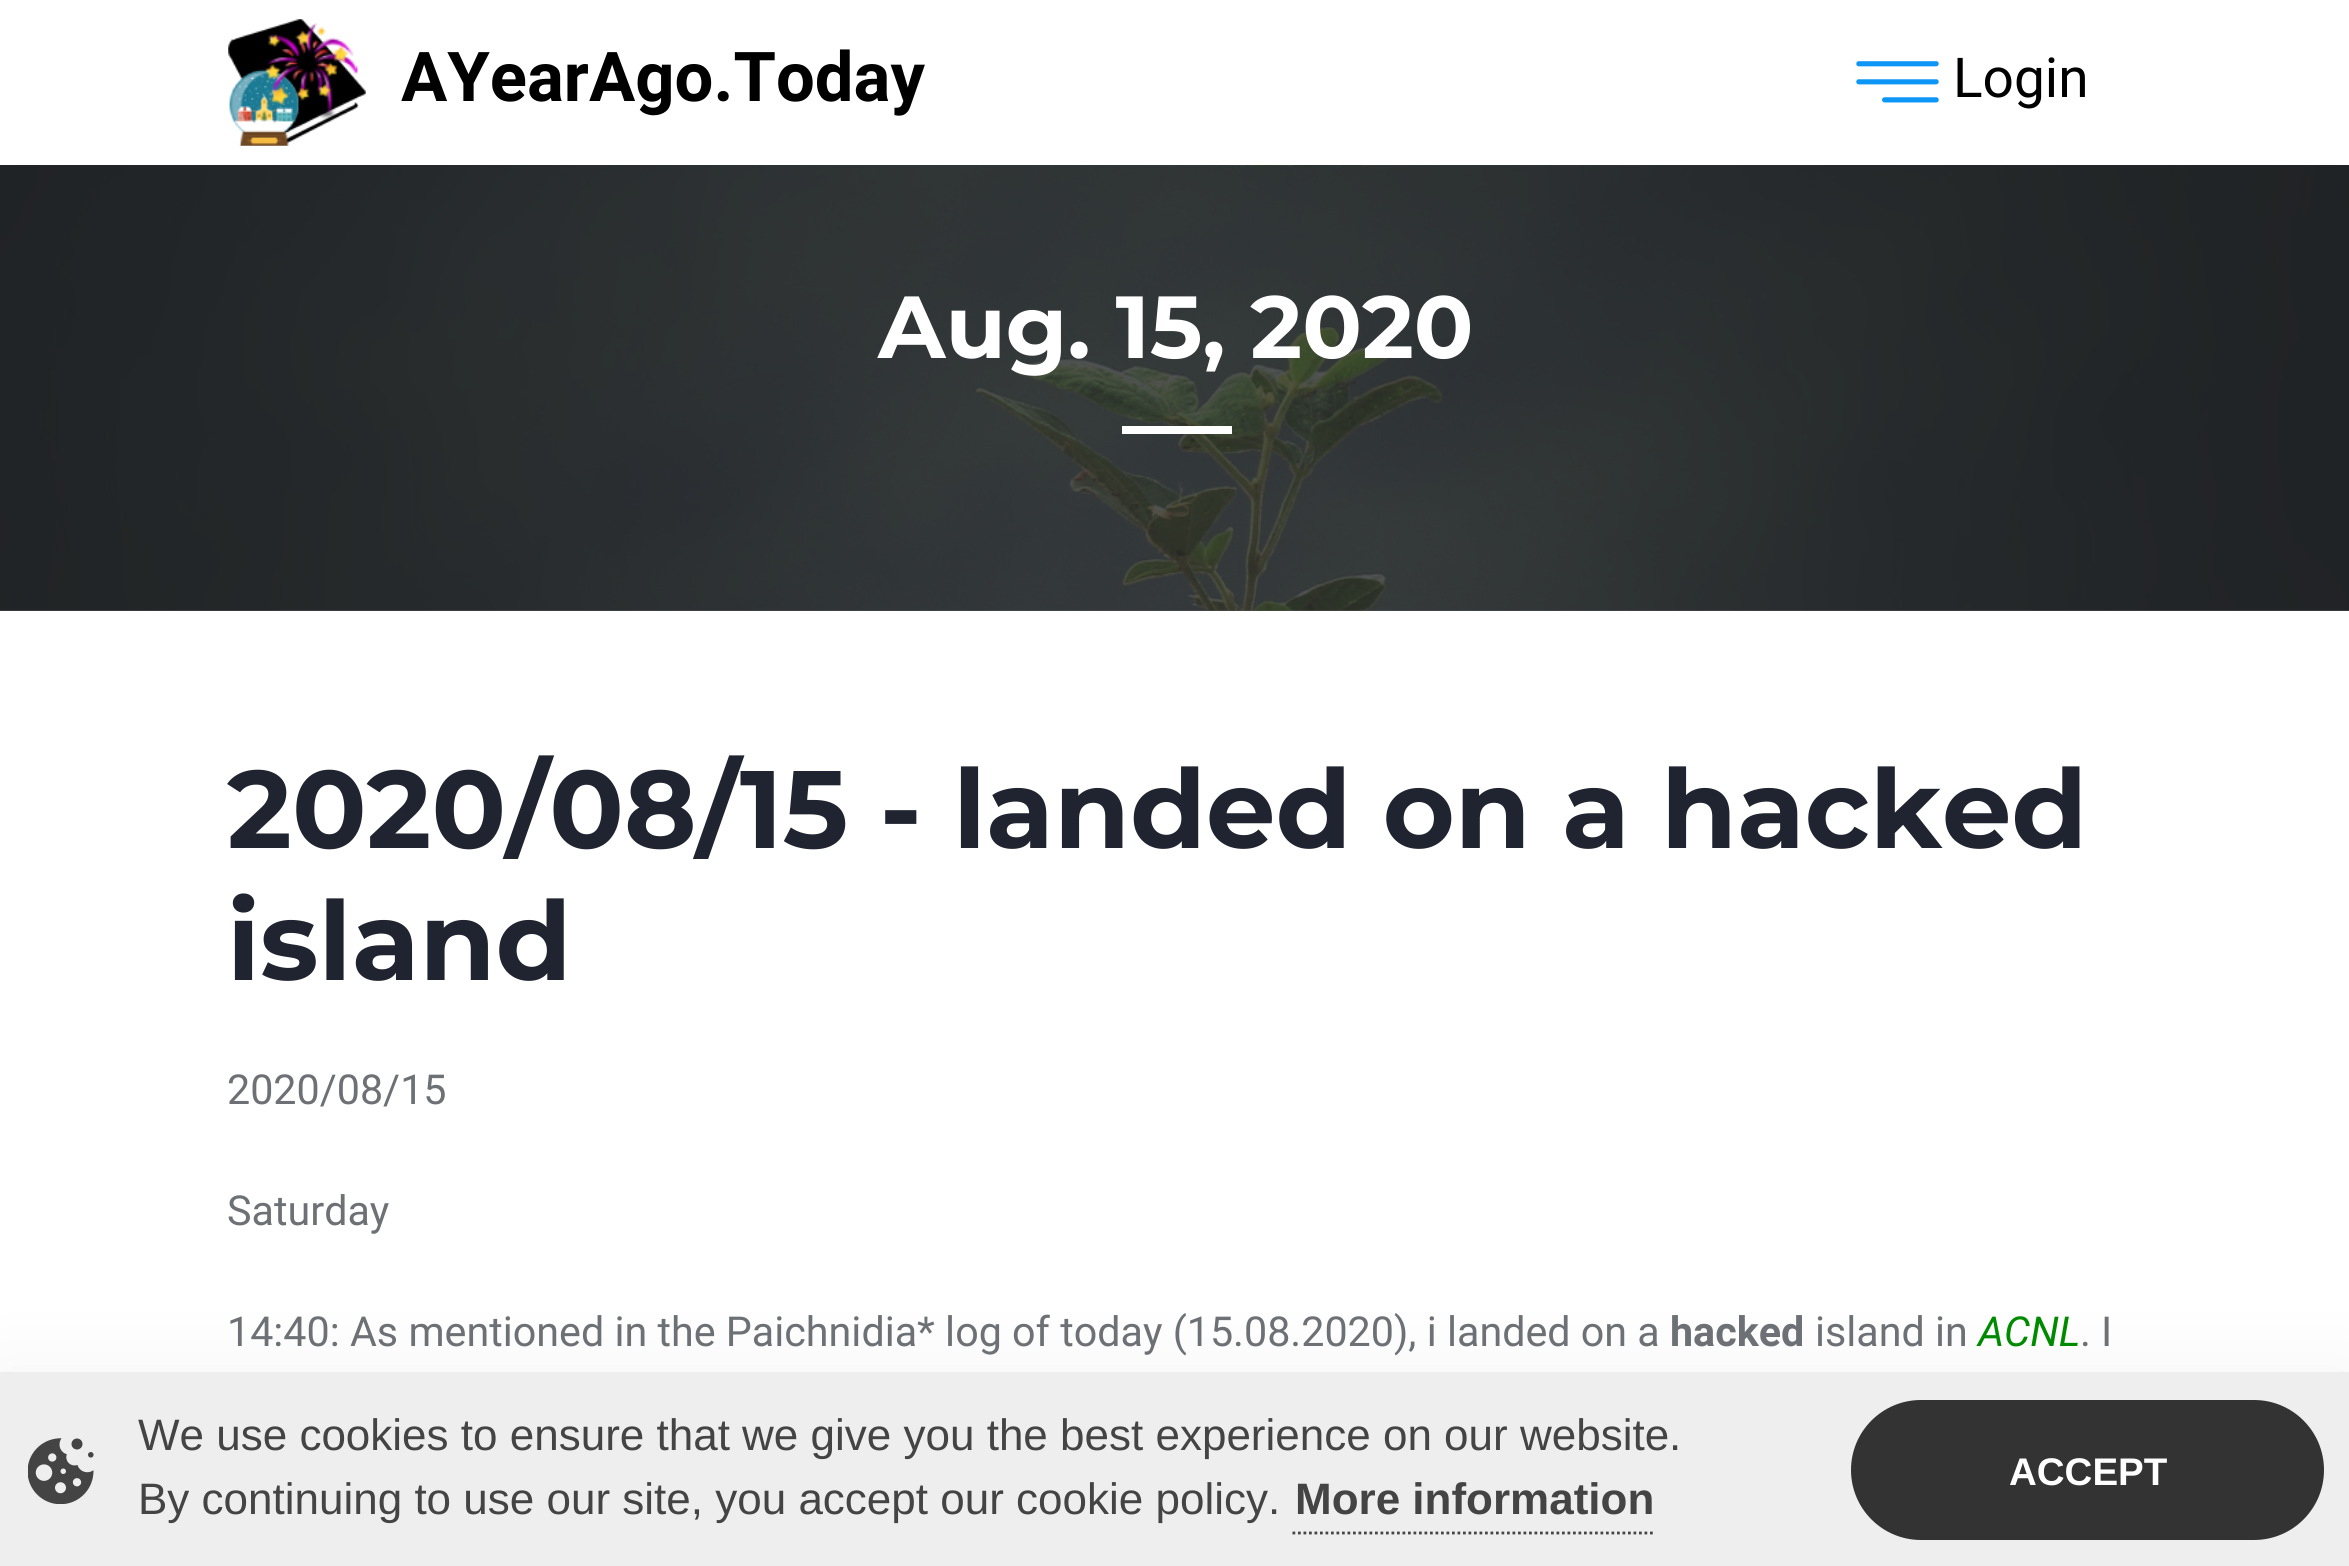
#include <cairo/cairo.h>
#include <math.h>
#include <stddef.h>

typedef struct { double x, y; const char *s; } line_t;
static cairo_t *cr;

static void rgb(unsigned color)
{
	cairo_set_source_rgb(cr, (color >> 16) / 255.0, (color >> 8 & 255) / 255.0, (color & 255) / 255.0);
}

static void rrect(double x, double y, double w, double h, double r)
{
	cairo_new_sub_path(cr);
	cairo_arc(cr, x + w - r, y + h - r, r, 0, M_PI / 2);
	cairo_arc(cr, x + r, y + h - r, r, M_PI / 2, M_PI);
	cairo_arc(cr, x + r, y + r, r, M_PI, 1.5 * M_PI);
	cairo_arc(cr, x + w - r, y + r, r, 1.5 * M_PI, 2 * M_PI);
	cairo_close_path(cr);
}

static void soft_shadow(double x, double y, double w, double h, double r, double blur, double alpha)
{
	cairo_push_group_with_content(cr, CAIRO_CONTENT_ALPHA);
	cairo_set_operator(cr, CAIRO_OPERATOR_SOURCE);
	for (int i = 15; i >= -15 && fmin(w, h) + blur * i / 3 > 0; i -= 2) {
		double e = blur * i / 6;
		cairo_set_source_rgba(cr, 0, 0, 0, alpha * erfc((i - 1) / 8.5) / 2);
		rrect(x - e, y - e, w + 2 * e, h + 2 * e, fmax(0, fmin(r + e + blur * .6, fmin(w, h) / 2 + e)));
		cairo_fill(cr);
	}
	cairo_pattern_t *soft = cairo_pop_group(cr);
	cairo_mask(cr, soft);
	cairo_pattern_destroy(soft);
}

static void image(const char *path, double x, double y, double w, double h)
{
	cairo_surface_t *image = cairo_image_surface_create_from_png(path);
	cairo_save(cr);
	cairo_set_source_surface(cr, image, x, y);
	cairo_rectangle(cr, x, y, w, h);
	cairo_fill(cr);
	cairo_restore(cr);
	cairo_surface_destroy(image);
}

int main(void) {
	cairo_surface_t *surface = cairo_image_surface_create(CAIRO_FORMAT_RGB24, 2349, 1566);
	cr = cairo_create(surface);
	cairo_font_options_t *options = cairo_font_options_create();
	cairo_font_options_set_hint_metrics(options, CAIRO_HINT_METRICS_OFF);
	cairo_font_options_set_hint_style(options, CAIRO_HINT_STYLE_NONE);
	cairo_set_font_options(cr, options);
	cairo_set_miter_limit(cr, 4);
	rgb(0xffffff);
	cairo_paint(cr);
	rgb(0x515355);
	cairo_rectangle(cr, 0, 610, 2349, 1);
	cairo_fill(cr);
	image("img/1.png", 228, 19, 138, 127);
	image("img/2.png", 1856, 61, 83, 42);
	image("img/3.png", 0, 165, 2349, 446);
	rgb(0xffffff);
	cairo_rectangle(cr, 1122, 426, 110, 8);
	cairo_fill(cr);
	rgb(0x000000);
	soft_shadow(0, 1372, 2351, 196, 0, 41, 0.05);
	rgb(0xeeeeee);
	cairo_rectangle(cr, 0, 1372, 2349, 194);
	cairo_fill(cr);
	image("img/4.png", 28, 1438, 66, 66);
	cairo_new_path(cr);
	cairo_move_to(cr, 1292.5, 1533);
	cairo_line_to(cr, 1655.5, 1533);
	rgb(0x444444);
	cairo_set_line_width(cr, 2.8);
	cairo_set_dash(cr, (double[]){2.75, 2.75}, 2, 0);
	cairo_stroke(cr);
	rgb(0x333333);
	rrect(1851, 1400, 473, 140, 70);
	cairo_fill(cr);
	cairo_select_font_face(cr, "Roboto", CAIRO_FONT_SLANT_NORMAL, CAIRO_FONT_WEIGHT_BOLD);
	cairo_set_font_size(cr, 68.75);
	rgb(0x000000);
	cairo_move_to(cr, 401, 101);
	cairo_show_text(cr, "AYearAgo.Today");
	cairo_select_font_face(cr, "Roboto", CAIRO_FONT_SLANT_NORMAL, CAIRO_FONT_WEIGHT_NORMAL);
	cairo_set_font_size(cr, 55);
	cairo_move_to(cr, 1953, 97);
	cairo_show_text(cr, "Login");
	cairo_select_font_face(cr, "Montserrat", CAIRO_FONT_SLANT_NORMAL, CAIRO_FONT_WEIGHT_BOLD);
	cairo_set_font_size(cr, 88);
	rgb(0xffffff);
	cairo_move_to(cr, 878, 358);
	cairo_show_text(cr, "Aug. 15, 2020");
	cairo_set_font_size(cr, 110);
	rgb(0x202430);
	cairo_move_to(cr, 227, 848);
	cairo_show_text(cr, "2020/08/15 - landed on a hacked");
	cairo_move_to(cr, 227, 980);
	cairo_show_text(cr, "island");
	cairo_select_font_face(cr, "Roboto", CAIRO_FONT_SLANT_NORMAL, CAIRO_FONT_WEIGHT_NORMAL);
	cairo_set_font_size(cr, 41.25);
	rgb(0x6d7175);
	{
		static const line_t items[] = {
			{227, 1104, "2020/08/15"},
			{227, 1225, "Saturday"},
			{227, 1346, "14:40: As mentioned in the Paichnidia* log of today (15.08.2020), i landed on a"},
		};
		for (size_t i = 0; i < sizeof items / sizeof *items; i++) {
			cairo_move_to(cr, items[i].x, items[i].y);
			cairo_show_text(cr, items[i].s);
		}
	}
	cairo_select_font_face(cr, "Roboto", CAIRO_FONT_SLANT_NORMAL, CAIRO_FONT_WEIGHT_BOLD);
	cairo_move_to(cr, 1670, 1346);
	cairo_show_text(cr, "hacked");
	cairo_select_font_face(cr, "Roboto", CAIRO_FONT_SLANT_NORMAL, CAIRO_FONT_WEIGHT_NORMAL);
	cairo_move_to(cr, 1815, 1346);
	cairo_show_text(cr, "island in");
	cairo_select_font_face(cr, "Roboto", CAIRO_FONT_SLANT_ITALIC, CAIRO_FONT_WEIGHT_NORMAL);
	rgb(0x008a00);
	cairo_move_to(cr, 1978, 1346);
	cairo_show_text(cr, "ACNL");
	cairo_select_font_face(cr, "Roboto", CAIRO_FONT_SLANT_NORMAL, CAIRO_FONT_WEIGHT_NORMAL);
	rgb(0x6d7175);
	cairo_move_to(cr, 2080, 1346);
	cairo_show_text(cr, ". I");
	cairo_select_font_face(cr, "Liberation Sans", CAIRO_FONT_SLANT_NORMAL, CAIRO_FONT_WEIGHT_NORMAL);
	cairo_set_font_size(cr, 44);
	rgb(0x444444);
	cairo_move_to(cr, 138, 1450);
	cairo_show_text(cr, "We use cookies to ensure that we give you the best experience on our website.");
	cairo_move_to(cr, 138, 1514);
	cairo_show_text(cr, "By continuing to use our site, you accept our cookie policy.");
	cairo_select_font_face(cr, "Liberation Sans", CAIRO_FONT_SLANT_NORMAL, CAIRO_FONT_WEIGHT_BOLD);
	cairo_move_to(cr, 1295, 1514);
	cairo_show_text(cr, "More information");
	cairo_set_font_size(cr, 38.5);
	rgb(0xffffff);
	cairo_move_to(cr, 2009, 1485);
	cairo_show_text(cr, "ACCEPT");
	cairo_surface_write_to_png(surface, "page.png");
	cairo_font_options_destroy(options);
	cairo_destroy(cr);
	cairo_surface_destroy(surface);
	return 0;
}
